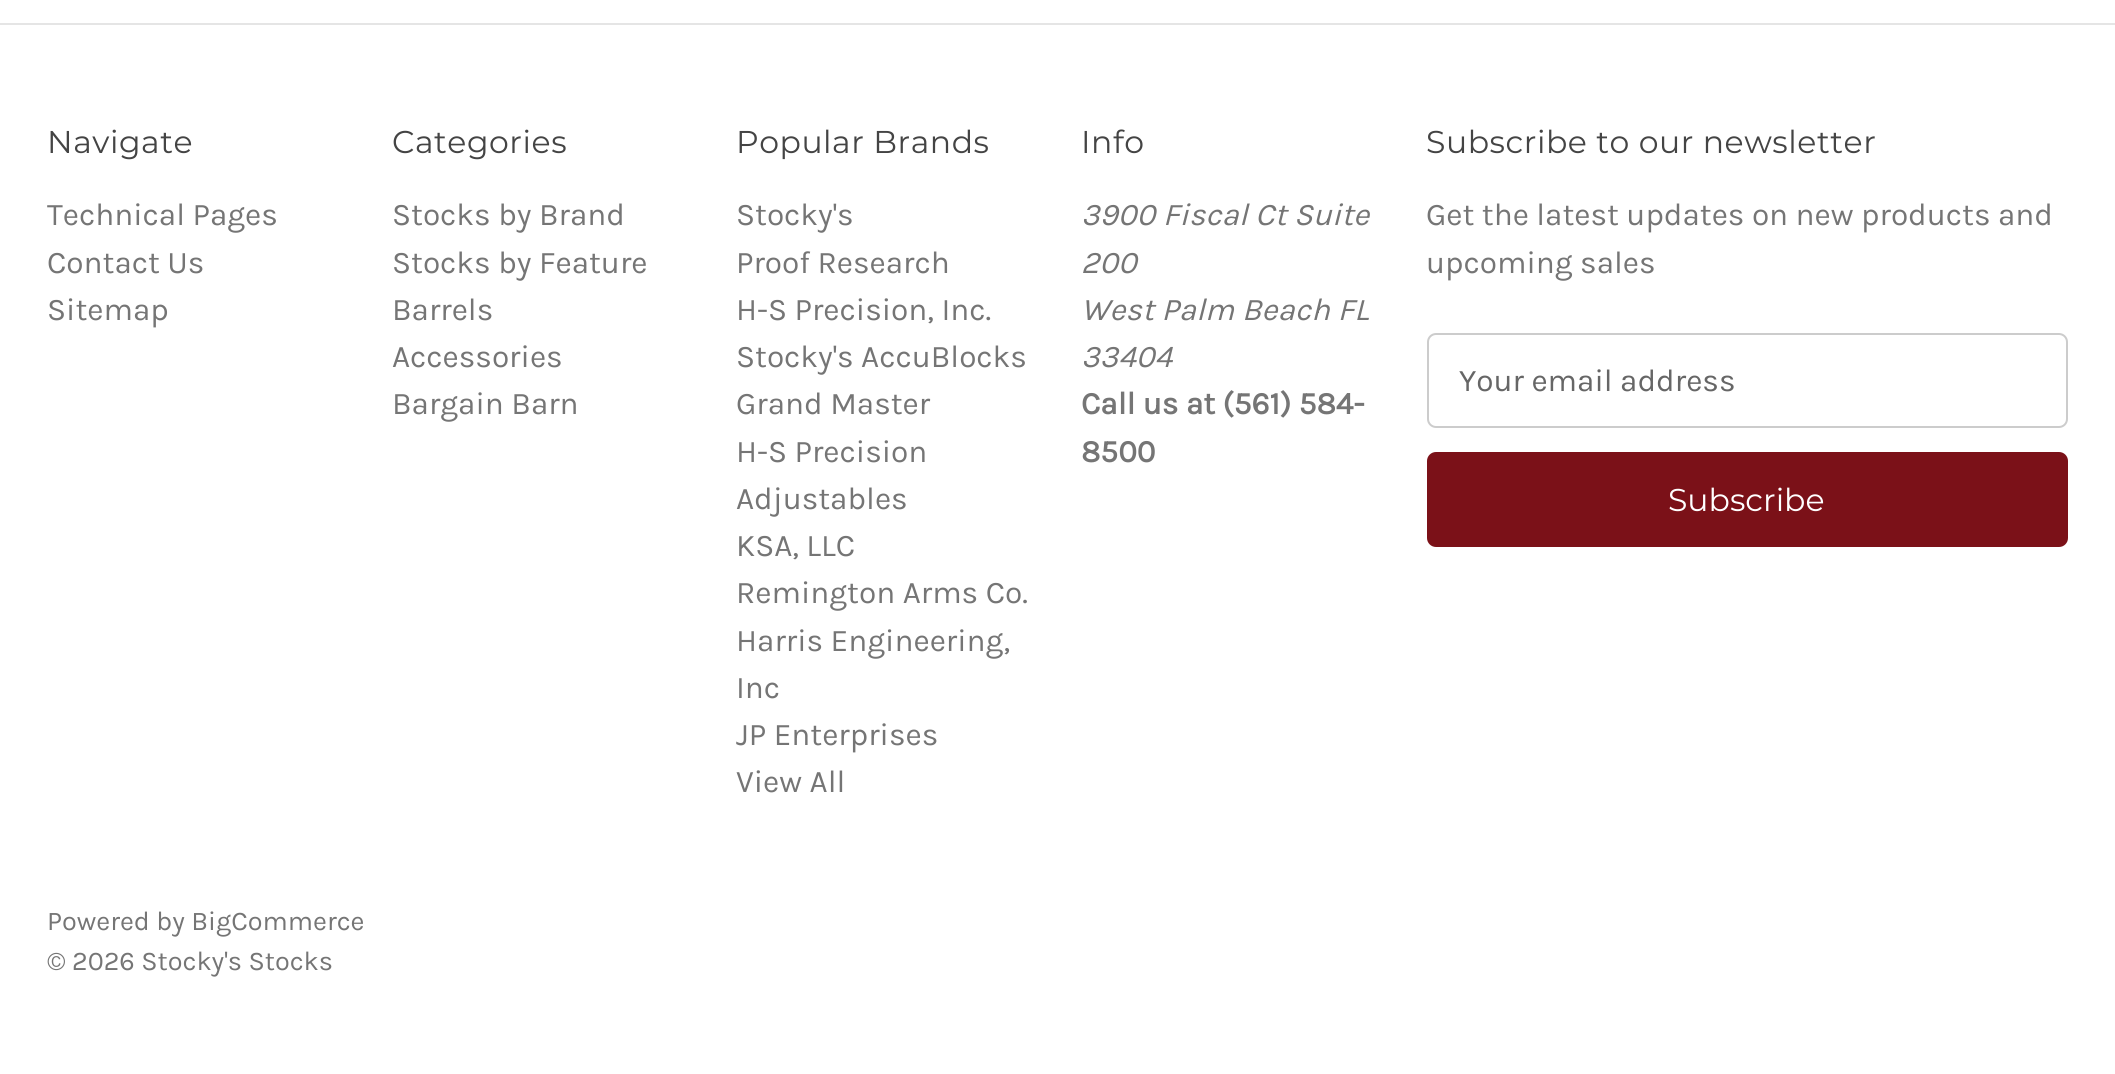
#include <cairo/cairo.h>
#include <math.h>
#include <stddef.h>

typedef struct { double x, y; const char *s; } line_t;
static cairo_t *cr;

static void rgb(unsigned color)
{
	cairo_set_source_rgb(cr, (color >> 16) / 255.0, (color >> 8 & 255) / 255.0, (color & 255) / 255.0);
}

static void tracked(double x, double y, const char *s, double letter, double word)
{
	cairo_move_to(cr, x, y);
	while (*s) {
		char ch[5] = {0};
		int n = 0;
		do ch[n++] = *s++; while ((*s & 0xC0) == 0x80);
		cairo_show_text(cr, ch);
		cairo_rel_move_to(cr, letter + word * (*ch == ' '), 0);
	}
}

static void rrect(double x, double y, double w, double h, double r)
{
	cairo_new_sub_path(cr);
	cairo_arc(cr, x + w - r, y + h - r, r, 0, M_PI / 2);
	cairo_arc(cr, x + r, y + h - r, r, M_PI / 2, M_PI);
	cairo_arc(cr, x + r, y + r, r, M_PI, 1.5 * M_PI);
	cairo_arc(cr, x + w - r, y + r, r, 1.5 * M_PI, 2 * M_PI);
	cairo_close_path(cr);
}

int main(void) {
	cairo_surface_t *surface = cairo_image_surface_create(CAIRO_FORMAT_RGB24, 2115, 1074);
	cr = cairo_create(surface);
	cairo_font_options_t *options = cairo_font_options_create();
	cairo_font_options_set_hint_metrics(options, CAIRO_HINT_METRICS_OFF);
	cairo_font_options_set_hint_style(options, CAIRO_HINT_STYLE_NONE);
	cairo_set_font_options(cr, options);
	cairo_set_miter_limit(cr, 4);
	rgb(0xffffff);
	cairo_paint(cr);
	rgb(0xe5e5e5);
	cairo_rectangle(cr, 0, 23, 2115, 2);
	cairo_fill(cr);
	rrect(1428, 334, 639, 93, 8);
	rgb(0xcccccc);
	cairo_stroke(cr);
	rgb(0x7b1118);
	rrect(1428, 453, 639, 93, 8);
	cairo_fill_preserve(cr);
	cairo_stroke(cr);
	cairo_select_font_face(cr, "Montserrat", CAIRO_FONT_SLANT_NORMAL, CAIRO_FONT_WEIGHT_NORMAL);
	cairo_set_font_size(cr, 31.5);
	rgb(0x444444);
	tracked(47, 153, "Navigate", 0.55, 0);
	cairo_select_font_face(cr, "Karla", CAIRO_FONT_SLANT_NORMAL, CAIRO_FONT_WEIGHT_NORMAL);
	rgb(0x757575);
	{
		static const line_t items[] = {
			{47, 225, "Technical Pages"},
			{47, 273, "Contact Us"},
			{47, 320, "Sitemap"},
		};
		for (size_t i = 0; i < sizeof items / sizeof *items; i++) {
			cairo_move_to(cr, items[i].x, items[i].y);
			cairo_show_text(cr, items[i].s);
		}
	}
	cairo_select_font_face(cr, "Montserrat", CAIRO_FONT_SLANT_NORMAL, CAIRO_FONT_WEIGHT_NORMAL);
	rgb(0x444444);
	tracked(392, 153, "Categories", 0.55, 0);
	cairo_select_font_face(cr, "Karla", CAIRO_FONT_SLANT_NORMAL, CAIRO_FONT_WEIGHT_NORMAL);
	rgb(0x757575);
	{
		static const line_t items[] = {
			{392, 225, "Stocks by Brand"},
			{392, 273, "Stocks by Feature"},
			{392, 320, "Barrels"},
			{392, 367, "Accessories"},
			{392, 414, "Bargain Barn"},
		};
		for (size_t i = 0; i < sizeof items / sizeof *items; i++) {
			cairo_move_to(cr, items[i].x, items[i].y);
			cairo_show_text(cr, items[i].s);
		}
	}
	cairo_select_font_face(cr, "Montserrat", CAIRO_FONT_SLANT_NORMAL, CAIRO_FONT_WEIGHT_NORMAL);
	rgb(0x444444);
	tracked(736, 153, "Popular Brands", 0.55, 0);
	cairo_select_font_face(cr, "Karla", CAIRO_FONT_SLANT_NORMAL, CAIRO_FONT_WEIGHT_NORMAL);
	rgb(0x757575);
	{
		static const line_t items[] = {
			{736, 225, "Stocky's"},
			{736, 273, "Proof Research"},
			{736, 320, "H-S Precision, Inc."},
			{736, 367, "Stocky's AccuBlocks"},
			{736, 414, "Grand Master"},
			{736, 462, "H-S Precision"},
			{736, 509, "Adjustables"},
			{736, 556, "KSA, LLC"},
			{736, 603, "Remington Arms Co."},
			{736, 651, "Harris Engineering,"},
			{736, 698, "Inc"},
			{736, 745, "JP Enterprises"},
			{736, 792, "View All"},
		};
		for (size_t i = 0; i < sizeof items / sizeof *items; i++) {
			cairo_move_to(cr, items[i].x, items[i].y);
			cairo_show_text(cr, items[i].s);
		}
	}
	cairo_select_font_face(cr, "Montserrat", CAIRO_FONT_SLANT_NORMAL, CAIRO_FONT_WEIGHT_NORMAL);
	rgb(0x444444);
	tracked(1081, 153, "Info", 0.55, 0);
	cairo_select_font_face(cr, "Karla", CAIRO_FONT_SLANT_ITALIC, CAIRO_FONT_WEIGHT_NORMAL);
	rgb(0x757575);
	{
		static const line_t items[] = {
			{1081, 225, "3900 Fiscal Ct Suite"},
			{1081, 273, "200"},
			{1081, 320, "West Palm Beach FL"},
			{1081, 367, "33404"},
		};
		for (size_t i = 0; i < sizeof items / sizeof *items; i++) {
			cairo_move_to(cr, items[i].x, items[i].y);
			cairo_show_text(cr, items[i].s);
		}
	}
	cairo_select_font_face(cr, "Karla", CAIRO_FONT_SLANT_NORMAL, CAIRO_FONT_WEIGHT_BOLD);
	cairo_move_to(cr, 1081, 414);
	cairo_show_text(cr, "Call us at (561) 584-");
	cairo_move_to(cr, 1081, 462);
	cairo_show_text(cr, "8500");
	cairo_select_font_face(cr, "Montserrat", CAIRO_FONT_SLANT_NORMAL, CAIRO_FONT_WEIGHT_NORMAL);
	rgb(0x444444);
	tracked(1426, 153, "Subscribe to our newsletter", 0.55, 0);
	cairo_select_font_face(cr, "Karla", CAIRO_FONT_SLANT_NORMAL, CAIRO_FONT_WEIGHT_NORMAL);
	rgb(0x757575);
	cairo_move_to(cr, 1426, 225);
	cairo_show_text(cr, "Get the latest updates on new products and");
	cairo_move_to(cr, 1426, 273);
	cairo_show_text(cr, "upcoming sales");
	rgb(0x666666);
	cairo_move_to(cr, 1459, 391);
	cairo_show_text(cr, "Your email address");
	cairo_select_font_face(cr, "Montserrat", CAIRO_FONT_SLANT_NORMAL, CAIRO_FONT_WEIGHT_NORMAL);
	rgb(0xffffff);
	cairo_move_to(cr, 1668, 511);
	cairo_show_text(cr, "Subscribe");
	cairo_select_font_face(cr, "Karla", CAIRO_FONT_SLANT_NORMAL, CAIRO_FONT_WEIGHT_NORMAL);
	cairo_set_font_size(cr, 27);
	rgb(0x757575);
	cairo_move_to(cr, 47, 930);
	cairo_show_text(cr, "Powered by BigCommerce");
	cairo_move_to(cr, 47, 970);
	cairo_show_text(cr, "© 2026 Stocky's Stocks");
	cairo_surface_write_to_png(surface, "page.png");
	cairo_font_options_destroy(options);
	cairo_destroy(cr);
	cairo_surface_destroy(surface);
	return 0;
}
